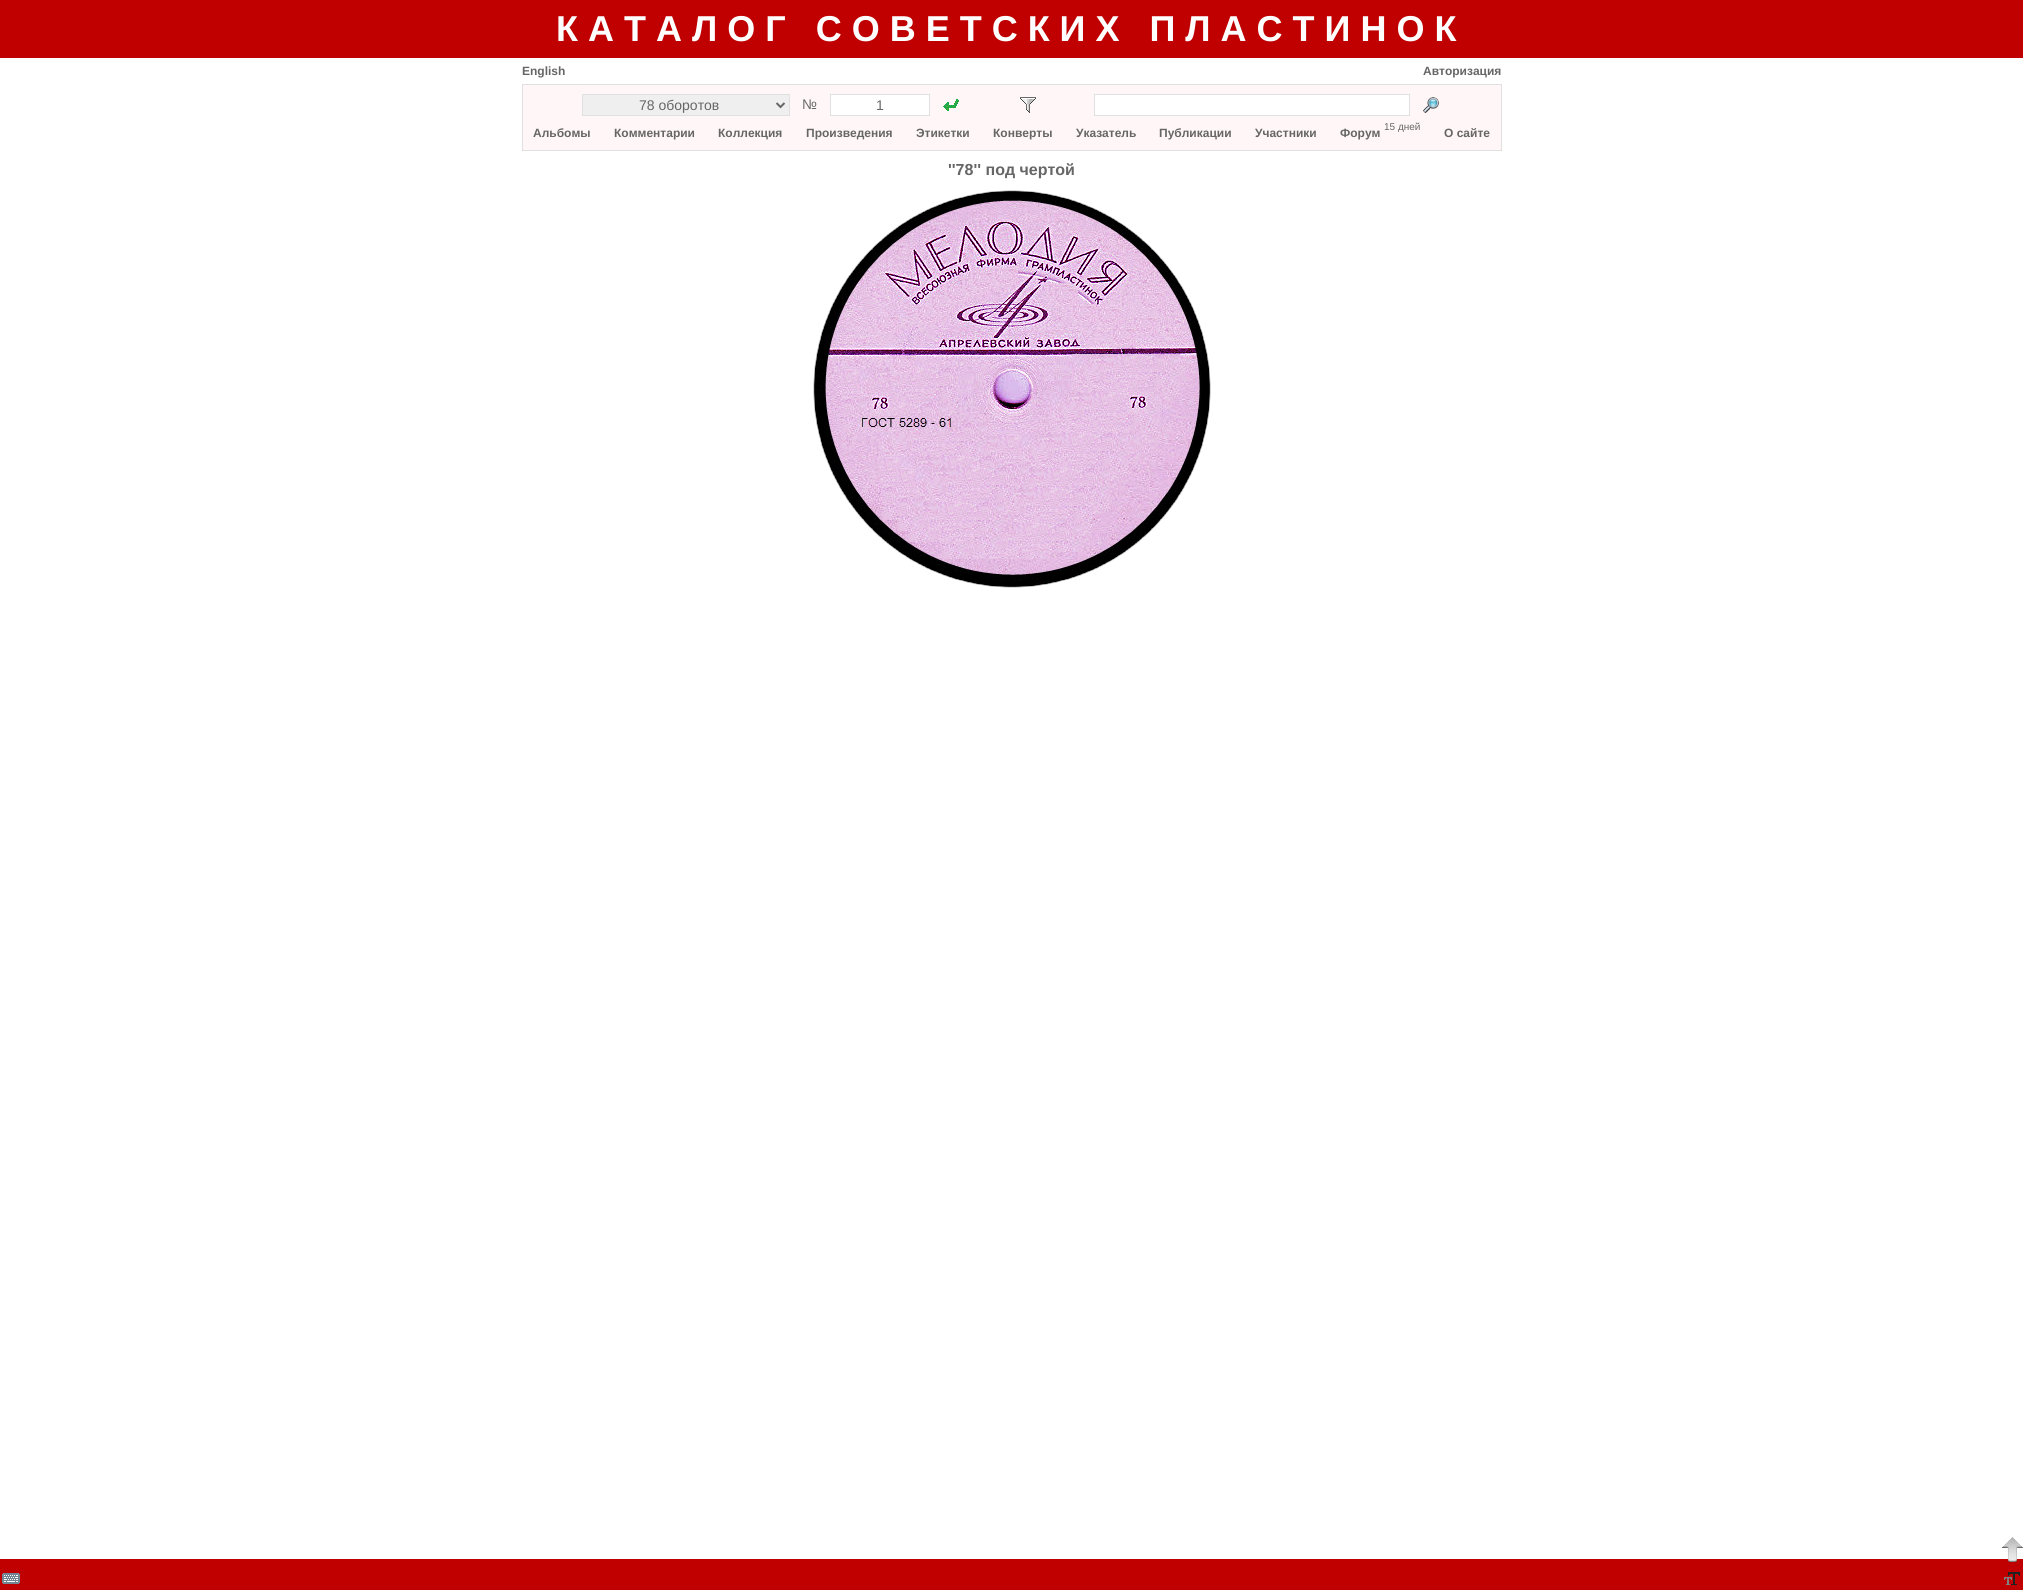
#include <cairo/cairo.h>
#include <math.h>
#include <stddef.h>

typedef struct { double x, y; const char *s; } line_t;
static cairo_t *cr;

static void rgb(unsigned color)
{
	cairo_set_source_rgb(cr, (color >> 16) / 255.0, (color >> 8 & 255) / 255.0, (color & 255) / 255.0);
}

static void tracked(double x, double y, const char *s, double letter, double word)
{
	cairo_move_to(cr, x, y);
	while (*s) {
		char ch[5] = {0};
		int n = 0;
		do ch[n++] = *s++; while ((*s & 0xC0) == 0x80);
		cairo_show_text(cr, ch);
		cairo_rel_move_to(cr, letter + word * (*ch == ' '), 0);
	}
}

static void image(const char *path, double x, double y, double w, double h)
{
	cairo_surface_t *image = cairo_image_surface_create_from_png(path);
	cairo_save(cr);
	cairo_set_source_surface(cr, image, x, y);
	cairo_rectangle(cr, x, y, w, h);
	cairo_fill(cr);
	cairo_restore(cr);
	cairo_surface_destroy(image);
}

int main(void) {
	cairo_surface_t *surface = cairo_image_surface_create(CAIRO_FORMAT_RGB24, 2023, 1590);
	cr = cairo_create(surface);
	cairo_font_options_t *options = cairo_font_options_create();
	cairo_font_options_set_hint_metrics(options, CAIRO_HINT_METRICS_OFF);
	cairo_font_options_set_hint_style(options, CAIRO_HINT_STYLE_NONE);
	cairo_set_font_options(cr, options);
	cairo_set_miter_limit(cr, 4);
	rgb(0xffffff);
	cairo_paint(cr);
	rgb(0xc00000);
	cairo_rectangle(cr, 0, 0, 2023, 58);
	cairo_fill(cr);
	rgb(0xfff7f7);
	cairo_rectangle(cr, 522.5, 84.5, 979, 66);
	cairo_fill_preserve(cr);
	rgb(0xe0e0e0);
	cairo_set_line_width(cr, 1);
	cairo_stroke(cr);
	rgb(0xefefef);
	cairo_rectangle(cr, 582.5, 94.5, 207, 21);
	cairo_fill_preserve(cr);
	rgb(0xe0e0e0);
	cairo_stroke(cr);
	cairo_new_path(cr);
	cairo_move_to(cr, 776.5, 103);
	cairo_line_to(cr, 780.5, 107);
	cairo_line_to(cr, 784.5, 103);
	rgb(0x666666);
	cairo_set_line_width(cr, 2);
	cairo_stroke(cr);
	rgb(0xffffff);
	cairo_rectangle(cr, 830.5, 94.5, 99, 21);
	cairo_fill_preserve(cr);
	rgb(0xe0e0e0);
	cairo_set_line_width(cr, 1);
	cairo_stroke(cr);
	image("img/1.png", 943, 99, 16, 12);
	image("img/2.png", 1020, 97, 16, 16);
	rgb(0xffffff);
	cairo_rectangle(cr, 1094.5, 94.5, 315, 21);
	cairo_fill_preserve(cr);
	rgb(0xe0e0e0);
	cairo_stroke(cr);
	image("img/3.png", 1423, 97, 16, 16);
	image("img/4.png", 813, 190, 398, 398);
	rgb(0xc00000);
	cairo_rectangle(cr, 0, 1559, 2023, 31);
	cairo_fill(cr);
	image("img/5.png", 2001, 1537, 22, 25);
	image("img/6.png", 2, 1573, 18, 11);
	image("img/7.png", 2004, 1572, 16, 13);
	cairo_select_font_face(cr, "Liberation Sans", CAIRO_FONT_SLANT_NORMAL, CAIRO_FONT_WEIGHT_BOLD);
	cairo_set_font_size(cr, 36);
	rgb(0xffffff);
	tracked(556, 41, "КАТАЛОГ СОВЕТСКИХ ПЛАСТИНОК", 10, 0);
	cairo_set_font_size(cr, 12);
	rgb(0x666666);
	cairo_move_to(cr, 522, 75);
	cairo_show_text(cr, "English");
	cairo_move_to(cr, 1423, 75);
	cairo_show_text(cr, "Авторизация");
	cairo_select_font_face(cr, "Liberation Sans", CAIRO_FONT_SLANT_NORMAL, CAIRO_FONT_WEIGHT_NORMAL);
	cairo_set_font_size(cr, 14);
	{
		static const line_t items[] = {
			{639, 110, "78 оборотов"},
			{802, 109, "№"},
			{876, 110, "1"},
		};
		for (size_t i = 0; i < sizeof items / sizeof *items; i++) {
			cairo_move_to(cr, items[i].x, items[i].y);
			cairo_show_text(cr, items[i].s);
		}
	}
	cairo_set_font_size(cr, 10);
	cairo_move_to(cr, 1384, 130);
	cairo_show_text(cr, "15 дней");
	cairo_select_font_face(cr, "Liberation Sans", CAIRO_FONT_SLANT_NORMAL, CAIRO_FONT_WEIGHT_BOLD);
	cairo_set_font_size(cr, 12);
	{
		static const line_t items[] = {
			{533, 137, "Альбомы"},
			{614, 137, "Комментарии"},
			{718, 137, "Коллекция"},
			{806, 137, "Произведения"},
			{916, 137, "Этикетки"},
			{993, 137, "Конверты"},
			{1076, 137, "Указатель"},
			{1159, 137, "Публикации"},
			{1255, 137, "Участники"},
			{1340, 137, "Форум"},
			{1444, 137, "О сайте"},
		};
		for (size_t i = 0; i < sizeof items / sizeof *items; i++) {
			cairo_move_to(cr, items[i].x, items[i].y);
			cairo_show_text(cr, items[i].s);
		}
	}
	cairo_set_font_size(cr, 16);
	cairo_move_to(cr, 948, 175);
	cairo_show_text(cr, "''78'' под чертой");
	cairo_surface_write_to_png(surface, "page.png");
	cairo_font_options_destroy(options);
	cairo_destroy(cr);
	cairo_surface_destroy(surface);
	return 0;
}
